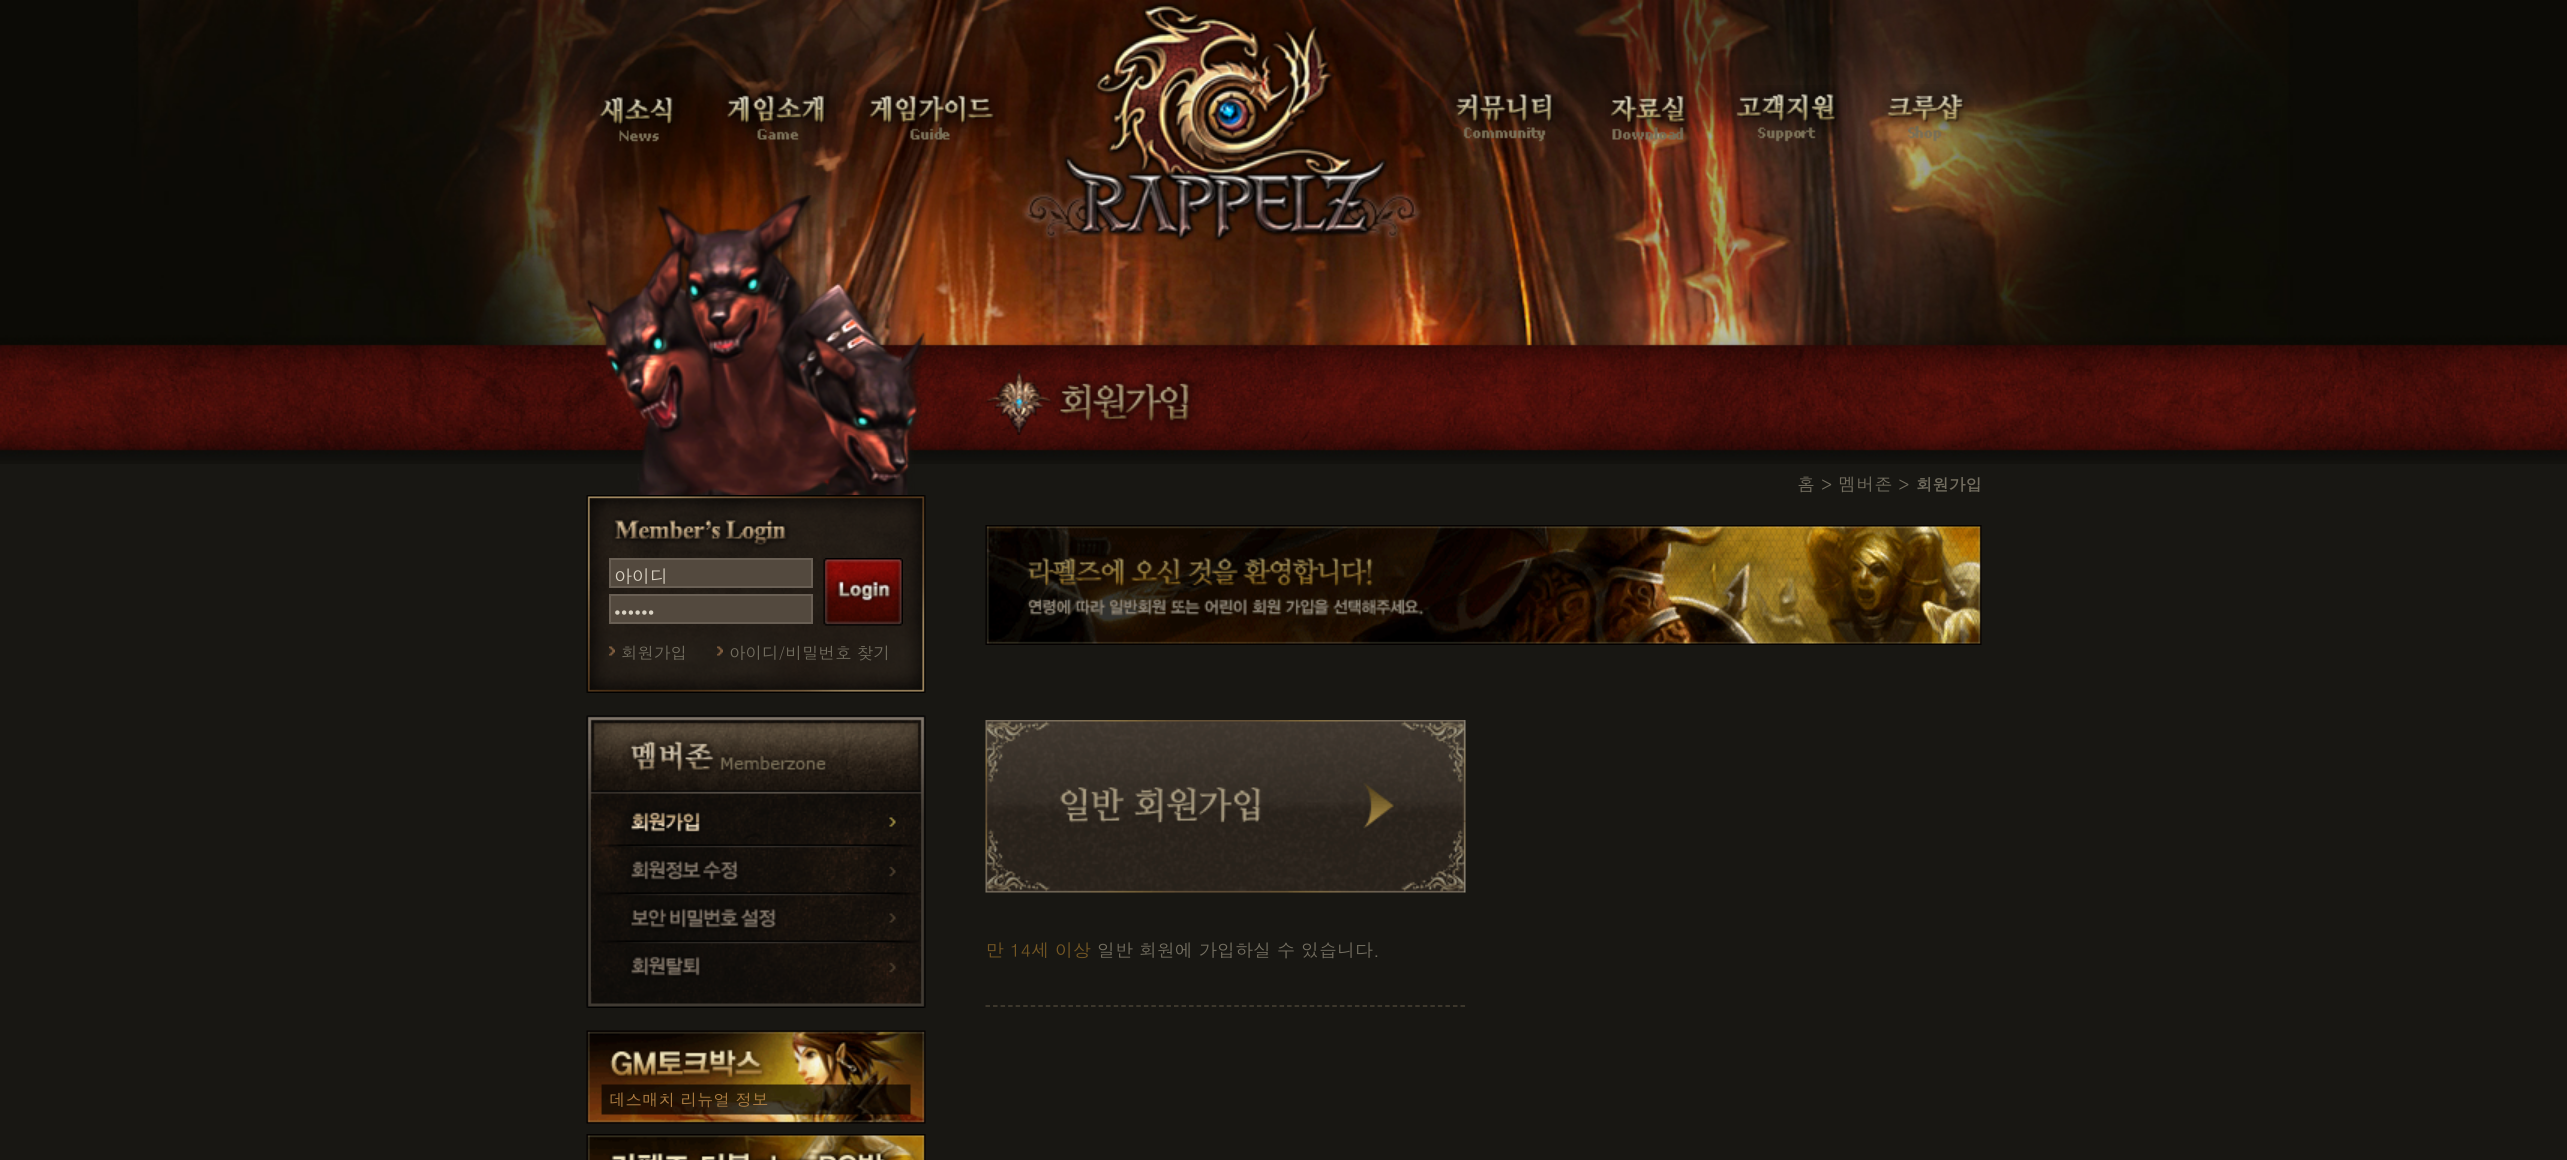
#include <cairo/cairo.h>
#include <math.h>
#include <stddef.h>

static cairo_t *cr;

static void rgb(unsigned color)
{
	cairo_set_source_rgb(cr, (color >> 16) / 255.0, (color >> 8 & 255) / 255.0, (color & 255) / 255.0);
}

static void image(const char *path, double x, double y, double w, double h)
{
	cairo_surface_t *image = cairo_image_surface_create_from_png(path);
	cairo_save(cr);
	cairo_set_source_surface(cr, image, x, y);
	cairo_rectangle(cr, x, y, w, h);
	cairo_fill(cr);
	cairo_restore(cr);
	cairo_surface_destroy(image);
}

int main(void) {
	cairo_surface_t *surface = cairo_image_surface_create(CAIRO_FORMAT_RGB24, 2567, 1160);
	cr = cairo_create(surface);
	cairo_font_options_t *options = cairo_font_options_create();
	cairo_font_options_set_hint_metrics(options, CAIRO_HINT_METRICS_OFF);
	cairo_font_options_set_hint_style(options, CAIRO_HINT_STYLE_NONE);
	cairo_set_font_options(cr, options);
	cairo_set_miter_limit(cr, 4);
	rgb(0x181713);
	cairo_paint(cr);
	image("img/1.png", 0, 0, 2567, 464);
	image("img/2.png", 594, 90, 86, 52);
	image("img/3.png", 722, 83, 114, 57);
	image("img/4.png", 864, 84, 135, 56);
	image("img/5.png", 1022, 2, 400, 241);
	image("img/6.png", 1447, 83, 116, 59);
	image("img/7.png", 1605, 85, 94, 55);
	image("img/8.png", 1728, 85, 118, 57);
	image("img/9.png", 1879, 84, 95, 58);
	image("img/10.png", 586, 195, 340, 300);
	image("img/11.png", 586, 495, 340, 198);
	rgb(0x53493e);
	cairo_rectangle(cr, 610, 559, 202, 28);
	cairo_fill_preserve(cr);
	rgb(0x695f54);
	cairo_stroke(cr);
	rgb(0x53493e);
	cairo_rectangle(cr, 610, 595, 202, 28);
	cairo_fill_preserve(cr);
	rgb(0x695f54);
	cairo_stroke(cr);
	image("img/12.png", 823, 558, 80, 68);
	image("img/13.png", 609, 646, 6, 10);
	image("img/14.png", 717, 646, 6, 10);
	image("img/15.png", 586, 715, 340, 293);
	image("img/16.png", 591, 799, 330, 49);
	image("img/17.png", 591, 847, 330, 49);
	image("img/18.png", 591, 895, 330, 49);
	image("img/19.png", 591, 943, 330, 49);
	image("img/20.png", 586, 1030, 340, 94);
	image("img/21.png", 586, 1134, 340, 26);
	image("img/22.png", 985, 369, 226, 66);
	image("img/23.png", 985, 525, 997, 120);
	image("img/24.png", 985, 720, 481, 173);
	cairo_new_path(cr);
	cairo_move_to(cr, 985.5, 1006);
	cairo_line_to(cr, 1465.5, 1006);
	rgb(0x484134);
	cairo_set_line_width(cr, 1.5);
	cairo_set_dash(cr, (double[]){4.5, 3.04}, 2, 0);
	cairo_stroke(cr);
	cairo_select_font_face(cr, "Dotum", CAIRO_FONT_SLANT_NORMAL, CAIRO_FONT_WEIGHT_NORMAL);
	cairo_set_font_size(cr, 18);
	rgb(0xd9d2c3);
	cairo_move_to(cr, 614, 583);
	cairo_show_text(cr, "아이디");
	cairo_move_to(cr, 614, 619);
	cairo_show_text(cr, "••••••");
	cairo_set_font_size(cr, 16.5);
	rgb(0x736e60);
	cairo_move_to(cr, 621, 659);
	cairo_show_text(cr, "회원가입");
	cairo_move_to(cr, 729, 659);
	cairo_show_text(cr, "아이디/비밀번호 찾기");
	rgb(0xb18043);
	cairo_move_to(cr, 609, 1106);
	cairo_show_text(cr, "데스매치 리뉴얼 정보");
	cairo_set_font_size(cr, 18);
	rgb(0x736e60);
	cairo_move_to(cr, 1797, 491);
	cairo_show_text(cr, "홈 > 멤버존 >");
	cairo_select_font_face(cr, "Dotum", CAIRO_FONT_SLANT_NORMAL, CAIRO_FONT_WEIGHT_BOLD);
	cairo_set_font_size(cr, 16.5);
	cairo_move_to(cr, 1916, 491);
	cairo_show_text(cr, "회원가입");
	cairo_select_font_face(cr, "Dotum", CAIRO_FONT_SLANT_NORMAL, CAIRO_FONT_WEIGHT_NORMAL);
	cairo_set_font_size(cr, 18);
	rgb(0x755723);
	cairo_move_to(cr, 986, 957);
	cairo_show_text(cr, "만 14세 이상");
	rgb(0x736e60);
	cairo_move_to(cr, 1097, 957);
	cairo_show_text(cr, "일반 회원에 가입하실 수 있습니다.");
	cairo_surface_write_to_png(surface, "page.png");
	cairo_font_options_destroy(options);
	cairo_destroy(cr);
	cairo_surface_destroy(surface);
	return 0;
}
